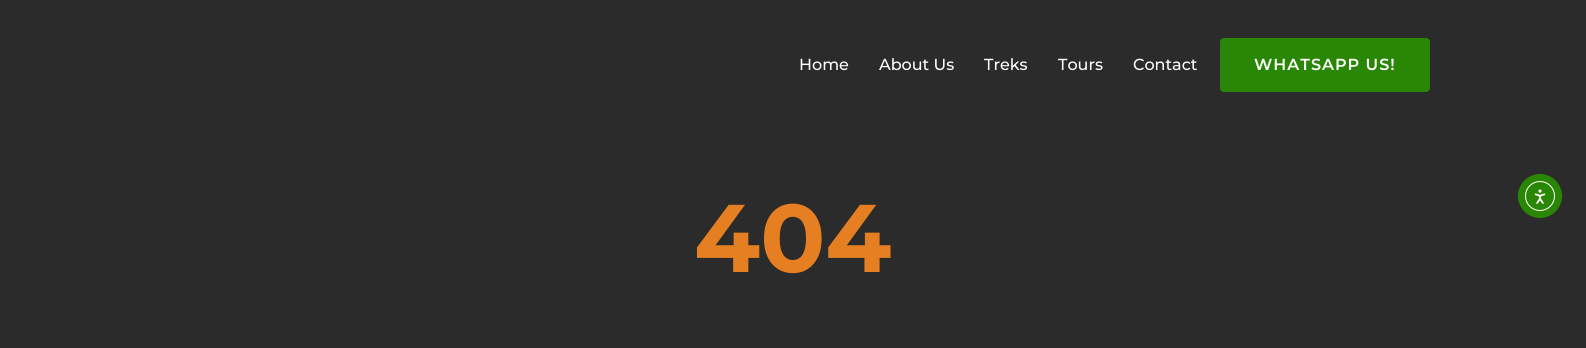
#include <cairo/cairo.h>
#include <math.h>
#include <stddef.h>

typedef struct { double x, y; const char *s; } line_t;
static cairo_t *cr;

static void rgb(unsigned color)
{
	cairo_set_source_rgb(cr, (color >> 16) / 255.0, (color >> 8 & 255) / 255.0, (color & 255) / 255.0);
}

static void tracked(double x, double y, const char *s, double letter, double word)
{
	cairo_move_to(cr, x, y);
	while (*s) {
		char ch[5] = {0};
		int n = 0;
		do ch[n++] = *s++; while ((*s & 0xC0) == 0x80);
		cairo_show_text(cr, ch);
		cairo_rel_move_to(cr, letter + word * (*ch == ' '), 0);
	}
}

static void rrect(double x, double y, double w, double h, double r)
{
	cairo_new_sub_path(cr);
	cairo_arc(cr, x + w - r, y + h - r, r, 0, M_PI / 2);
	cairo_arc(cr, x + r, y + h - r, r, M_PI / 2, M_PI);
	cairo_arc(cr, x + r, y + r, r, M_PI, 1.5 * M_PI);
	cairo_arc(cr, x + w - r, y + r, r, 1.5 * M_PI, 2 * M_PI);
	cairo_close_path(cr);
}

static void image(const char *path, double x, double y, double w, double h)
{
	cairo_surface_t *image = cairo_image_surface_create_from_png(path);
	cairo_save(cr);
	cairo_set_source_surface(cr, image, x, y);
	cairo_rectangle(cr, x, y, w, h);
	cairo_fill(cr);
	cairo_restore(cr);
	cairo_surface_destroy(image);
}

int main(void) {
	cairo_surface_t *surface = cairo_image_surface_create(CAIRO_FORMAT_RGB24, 1586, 348);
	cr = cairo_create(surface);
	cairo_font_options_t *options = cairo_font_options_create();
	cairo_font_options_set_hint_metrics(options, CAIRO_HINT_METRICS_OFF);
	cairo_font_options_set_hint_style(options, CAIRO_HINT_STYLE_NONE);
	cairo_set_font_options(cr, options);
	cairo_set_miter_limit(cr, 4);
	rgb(0x2b2b2b);
	cairo_paint(cr);
	rgb(0x2a8705);
	rrect(1221, 39, 208, 52, 3);
	cairo_fill_preserve(cr);
	cairo_stroke(cr);
	cairo_arc(cr, 1540, 196, 22, 0, 2 * M_PI);
	cairo_fill(cr);
	cairo_arc(cr, 1540, 196, 14.5, 0, 2 * M_PI);
	rgb(0xffffff);
	cairo_set_line_width(cr, 1);
	cairo_stroke(cr);
	image("img/1.png", 1534, 189, 12, 15);
	cairo_select_font_face(cr, "Montserrat Medium", CAIRO_FONT_SLANT_NORMAL, CAIRO_FONT_WEIGHT_NORMAL);
	cairo_set_font_size(cr, 16);
	{
		static const line_t items[] = {
			{799, 70, "Home"},
			{879, 70, "About Us"},
			{984, 70, "Treks"},
			{1058, 70, "Tours"},
			{1133, 70, "Contact"},
		};
		for (size_t i = 0; i < sizeof items / sizeof *items; i++) {
			cairo_move_to(cr, items[i].x, items[i].y);
			cairo_show_text(cr, items[i].s);
		}
	}
	cairo_select_font_face(cr, "Montserrat SemiBold", CAIRO_FONT_SLANT_NORMAL, CAIRO_FONT_WEIGHT_NORMAL);
	tracked(1254, 70, "WHATSAPP US!", 1, 0);
	cairo_select_font_face(cr, "Montserrat", CAIRO_FONT_SLANT_NORMAL, CAIRO_FONT_WEIGHT_BOLD);
	cairo_set_font_size(cr, 96);
	rgb(0xe67e22);
	cairo_move_to(cr, 694, 272);
	cairo_show_text(cr, "404");
	cairo_surface_write_to_png(surface, "page.png");
	cairo_font_options_destroy(options);
	cairo_destroy(cr);
	cairo_surface_destroy(surface);
	return 0;
}
